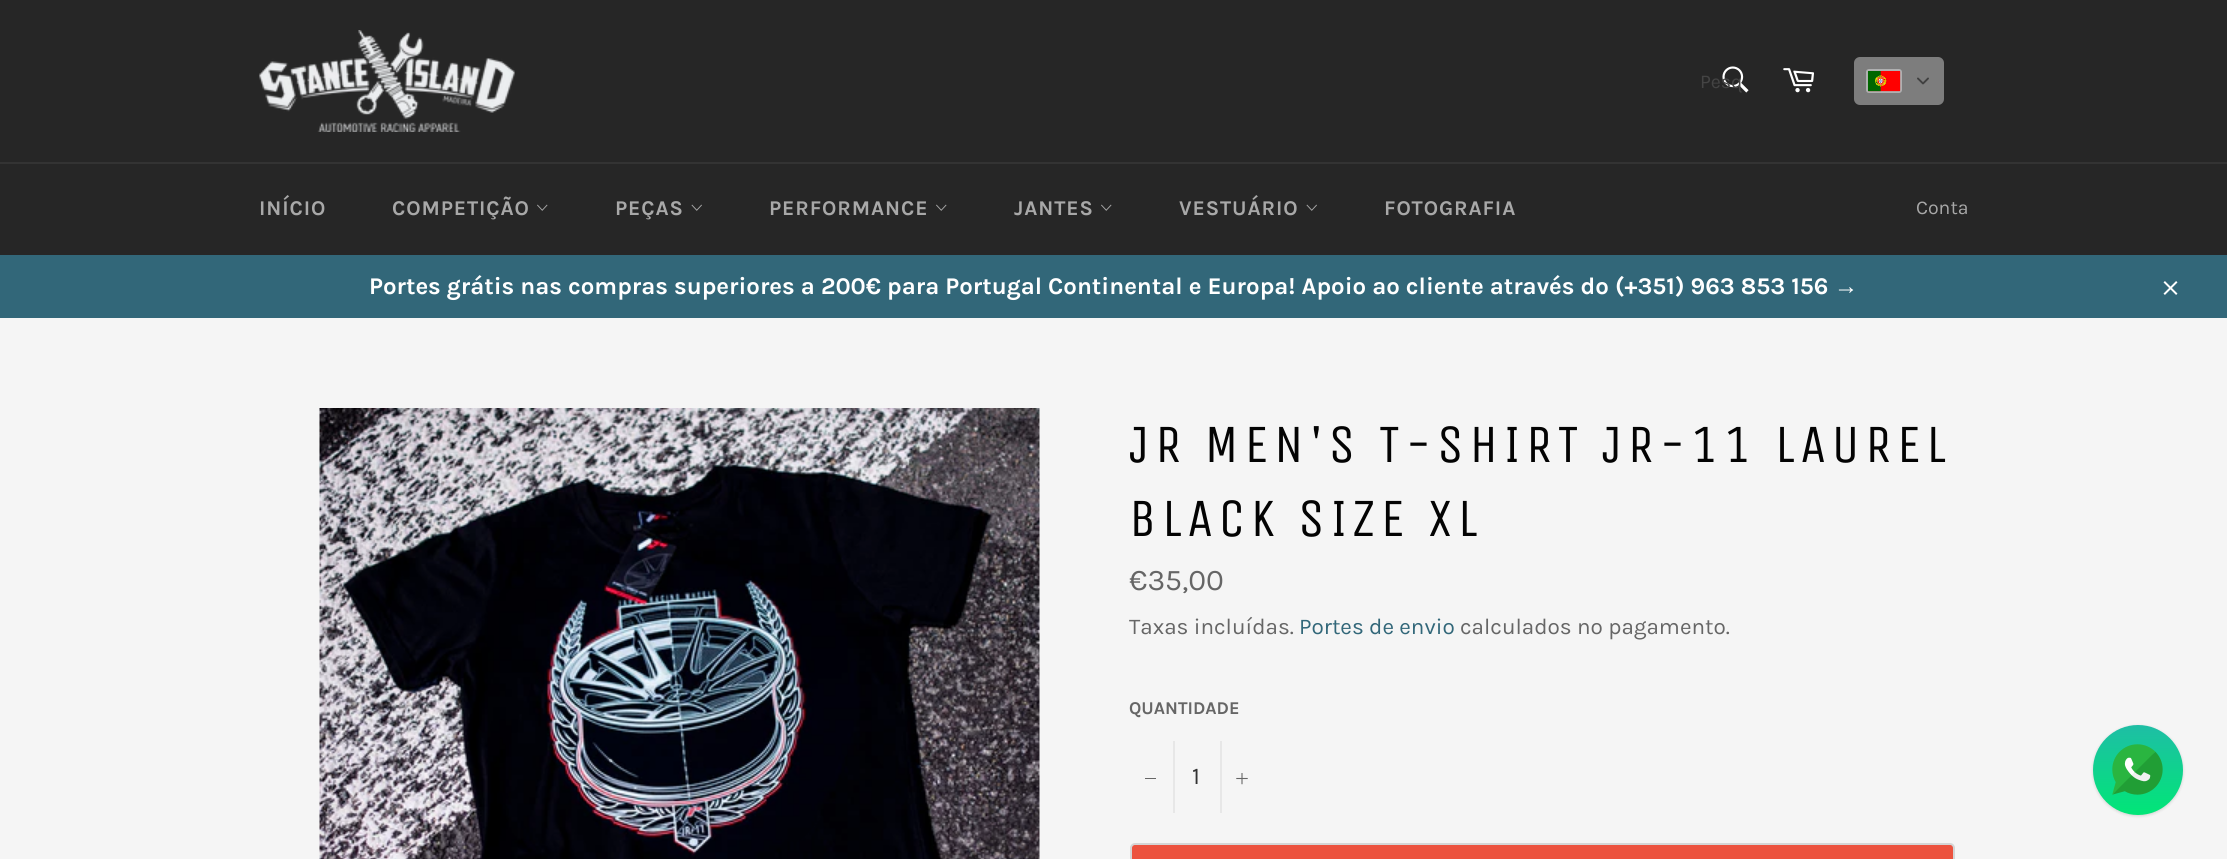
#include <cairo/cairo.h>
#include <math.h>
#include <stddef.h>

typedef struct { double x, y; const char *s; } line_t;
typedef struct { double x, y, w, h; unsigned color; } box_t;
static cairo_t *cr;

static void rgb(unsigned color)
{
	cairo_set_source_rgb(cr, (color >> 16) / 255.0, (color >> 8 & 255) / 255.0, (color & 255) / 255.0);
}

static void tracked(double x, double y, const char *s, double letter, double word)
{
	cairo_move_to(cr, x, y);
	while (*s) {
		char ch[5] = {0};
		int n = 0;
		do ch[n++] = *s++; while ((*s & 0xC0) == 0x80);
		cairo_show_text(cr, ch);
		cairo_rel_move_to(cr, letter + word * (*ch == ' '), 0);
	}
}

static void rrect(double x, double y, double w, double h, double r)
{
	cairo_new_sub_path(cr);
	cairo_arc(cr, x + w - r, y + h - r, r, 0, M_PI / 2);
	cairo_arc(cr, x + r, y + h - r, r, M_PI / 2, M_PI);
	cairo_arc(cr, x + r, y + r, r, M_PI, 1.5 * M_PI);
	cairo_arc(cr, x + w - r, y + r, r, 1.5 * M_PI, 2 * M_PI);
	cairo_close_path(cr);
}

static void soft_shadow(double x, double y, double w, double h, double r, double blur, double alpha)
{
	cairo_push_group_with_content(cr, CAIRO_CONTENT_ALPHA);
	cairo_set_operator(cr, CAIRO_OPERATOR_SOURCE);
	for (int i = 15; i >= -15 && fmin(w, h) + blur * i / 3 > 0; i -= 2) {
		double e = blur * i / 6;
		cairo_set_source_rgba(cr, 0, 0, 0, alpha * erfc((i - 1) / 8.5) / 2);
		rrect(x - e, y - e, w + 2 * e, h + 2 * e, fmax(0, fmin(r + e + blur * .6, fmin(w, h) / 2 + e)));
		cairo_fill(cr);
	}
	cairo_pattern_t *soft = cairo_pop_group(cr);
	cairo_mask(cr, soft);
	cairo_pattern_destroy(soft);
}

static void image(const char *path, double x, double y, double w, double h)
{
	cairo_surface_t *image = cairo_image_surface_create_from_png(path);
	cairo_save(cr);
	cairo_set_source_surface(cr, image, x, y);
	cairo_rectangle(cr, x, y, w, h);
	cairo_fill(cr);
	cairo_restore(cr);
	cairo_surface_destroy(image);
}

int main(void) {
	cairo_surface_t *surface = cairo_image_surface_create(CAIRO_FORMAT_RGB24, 2227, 859);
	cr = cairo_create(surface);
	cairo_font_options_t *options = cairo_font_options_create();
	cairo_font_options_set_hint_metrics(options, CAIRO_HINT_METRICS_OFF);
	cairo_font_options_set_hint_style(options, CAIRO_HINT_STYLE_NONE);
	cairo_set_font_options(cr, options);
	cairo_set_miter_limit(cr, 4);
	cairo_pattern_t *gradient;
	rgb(0xf5f5f5);
	cairo_paint(cr);
	rgb(0x262626);
	cairo_rectangle(cr, 0, 0, 2227, 255);
	cairo_fill(cr);
	image("img/1.png", 259, 30, 256, 102);
	image("img/2.png", 1722, 66, 27, 27);
	image("img/3.png", 1783, 68, 31, 25);
	rgb(0x7d7d7d);
	rrect(1854, 57, 90, 48, 6);
	cairo_fill(cr);
	rrect(1867, 70, 34, 22, 2);
	rgb(0xafb0b1);
	cairo_stroke(cr);
	image("img/4.png", 1868, 71, 33, 21);
	image("img/5.png", 1917, 77, 12, 8);
	rgb(0x333333);
	cairo_rectangle(cr, 0, 162, 2227, 2);
	cairo_fill(cr);
	image("img/6.png", 537, 204, 11, 7);
	image("img/7.png", 691, 204, 11, 7);
	image("img/6.png", 936, 204, 11, 7);
	image("img/6.png", 1101, 204, 11, 7);
	image("img/7.png", 1306, 204, 11, 7);
	rgb(0x326779);
	cairo_rectangle(cr, 0, 255, 2227, 63);
	cairo_fill(cr);
	image("img/8.png", 2163, 281, 15, 14);
	image("img/9.png", 319, 408, 721, 451);
	{
		static const box_t items[] = {
			{1173, 741, 2, 72, 0xe7e7e7},
			{1145, 778, 11, 1, 0x666666},
			{1220, 741, 2, 72, 0xe7e7e7},
		};
		for (size_t i = 0; i < sizeof items / sizeof *items; i++) {
			rgb(items[i].color);
			cairo_rectangle(cr, items[i].x, items[i].y, items[i].w, items[i].h);
			cairo_fill(cr);
		}
	}
	image("img/10.png", 1236, 773, 12, 12);
	rgb(0xec523e);
	rrect(1131, 844, 823, 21, 4);
	cairo_fill_preserve(cr);
	rgb(0xd5d5d5);
	cairo_stroke(cr);
	rgb(0x000000);
	soft_shadow(2093, 726, 90, 90, 45, 1.5, 0.15);
	gradient = cairo_pattern_create_linear(2138, 725, 2138, 815);
	cairo_pattern_add_color_stop_rgba(gradient, 0, 0.118, 0.745, 0.647, 1);
	cairo_pattern_add_color_stop_rgba(gradient, 1, 0.004, 0.902, 0.467, 1);
	cairo_set_source(cr, gradient);
	cairo_pattern_destroy(gradient);
	cairo_arc(cr, 2138, 770, 45, 0, 2 * M_PI);
	cairo_fill(cr);
	image("img/11.png", 2112, 744, 51, 51);
	cairo_select_font_face(cr, "Karla", CAIRO_FONT_SLANT_NORMAL, CAIRO_FONT_WEIGHT_NORMAL);
	cairo_set_font_size(cr, 19.5);
	rgb(0x444444);
	cairo_move_to(cr, 1700, 88);
	cairo_show_text(cr, "Pesq");
	cairo_select_font_face(cr, "Karla", CAIRO_FONT_SLANT_NORMAL, CAIRO_FONT_WEIGHT_BOLD);
	cairo_set_font_size(cr, 21);
	rgb(0xa8a8a8);
	{
		static const line_t items[] = {
			{259, 215, "INÍCIO"},
			{392, 215, "COMPETIÇÃO"},
			{615, 215, "PEÇAS"},
			{769, 215, "PERFORMANCE"},
			{1014, 215, "JANTES"},
			{1179, 215, "VESTUÁRIO"},
			{1384, 215, "FOTOGRAFIA"},
		};
		for (size_t i = 0; i < sizeof items / sizeof *items; i++) {
			tracked(items[i].x, items[i].y, items[i].s, 0.9, 0);
		}
	}
	cairo_select_font_face(cr, "Karla", CAIRO_FONT_SLANT_NORMAL, CAIRO_FONT_WEIGHT_NORMAL);
	cairo_set_font_size(cr, 19.5);
	cairo_move_to(cr, 1916, 214);
	cairo_show_text(cr, "Conta");
	cairo_select_font_face(cr, "Karla", CAIRO_FONT_SLANT_NORMAL, CAIRO_FONT_WEIGHT_BOLD);
	cairo_set_font_size(cr, 24);
	rgb(0xffffff);
	cairo_move_to(cr, 369, 294);
	cairo_show_text(cr, "Portes grátis nas compras superiores a 200€ para Portugal Continental e Europa! Apoio ao cliente através do (+351) 963 853 156");
	cairo_select_font_face(cr, "Liberation Sans", CAIRO_FONT_SLANT_NORMAL, CAIRO_FONT_WEIGHT_BOLD);
	cairo_move_to(cr, 1834, 294);
	cairo_show_text(cr, "→");
	cairo_select_font_face(cr, "Unica One", CAIRO_FONT_SLANT_NORMAL, CAIRO_FONT_WEIGHT_NORMAL);
	cairo_set_font_size(cr, 54);
	rgb(0x030303);
	tracked(1129, 462, "JR MEN'S T-SHIRT JR-11 LAUREL", 5.4, 0);
	tracked(1129, 536, "BLACK SIZE XL", 5.4, 0);
	cairo_select_font_face(cr, "Karla", CAIRO_FONT_SLANT_NORMAL, CAIRO_FONT_WEIGHT_NORMAL);
	cairo_set_font_size(cr, 30);
	rgb(0x666666);
	cairo_move_to(cr, 1129, 590);
	cairo_show_text(cr, "€35,00");
	cairo_set_font_size(cr, 22.5);
	cairo_move_to(cr, 1129, 634);
	cairo_show_text(cr, "Taxas incluídas.");
	rgb(0x326779);
	cairo_move_to(cr, 1299, 634);
	cairo_show_text(cr, "Portes de envio");
	rgb(0x666666);
	cairo_move_to(cr, 1460, 634);
	cairo_show_text(cr, "calculados no pagamento.");
	cairo_select_font_face(cr, "Karla", CAIRO_FONT_SLANT_NORMAL, CAIRO_FONT_WEIGHT_BOLD);
	cairo_set_font_size(cr, 18);
	cairo_move_to(cr, 1129, 714);
	cairo_show_text(cr, "QUANTIDADE");
	cairo_select_font_face(cr, "Karla", CAIRO_FONT_SLANT_NORMAL, CAIRO_FONT_WEIGHT_NORMAL);
	cairo_set_font_size(cr, 24);
	rgb(0x333333);
	cairo_move_to(cr, 1192, 784);
	cairo_show_text(cr, "1");
	cairo_surface_write_to_png(surface, "page.png");
	cairo_font_options_destroy(options);
	cairo_destroy(cr);
	cairo_surface_destroy(surface);
	return 0;
}
